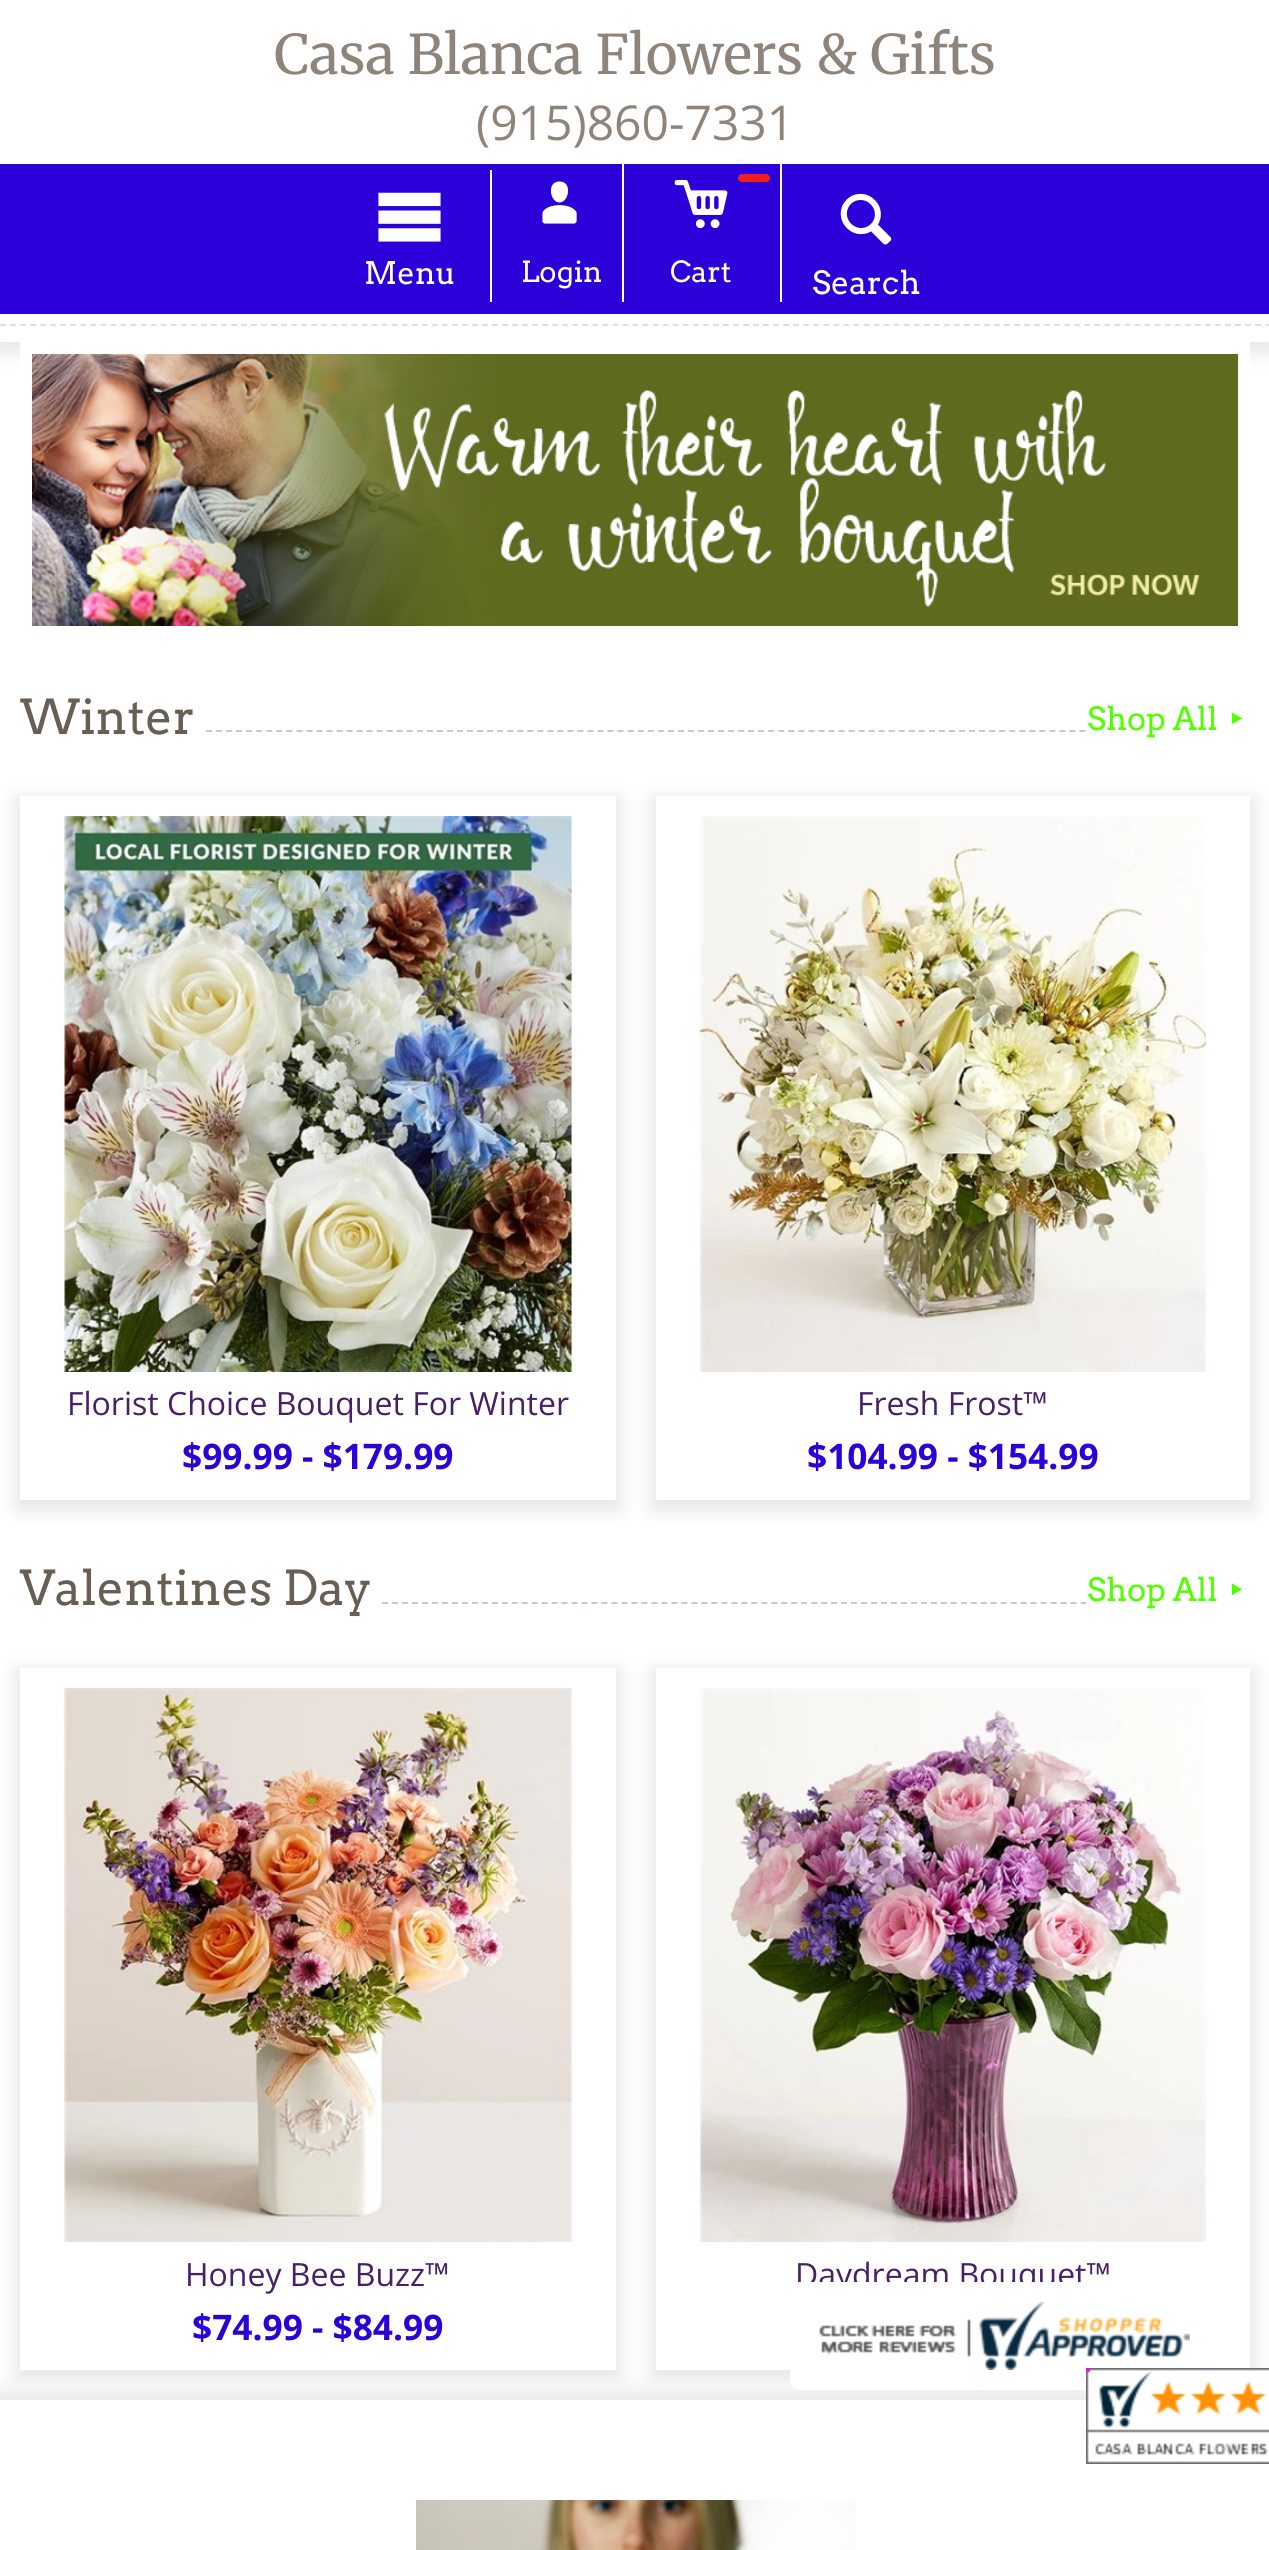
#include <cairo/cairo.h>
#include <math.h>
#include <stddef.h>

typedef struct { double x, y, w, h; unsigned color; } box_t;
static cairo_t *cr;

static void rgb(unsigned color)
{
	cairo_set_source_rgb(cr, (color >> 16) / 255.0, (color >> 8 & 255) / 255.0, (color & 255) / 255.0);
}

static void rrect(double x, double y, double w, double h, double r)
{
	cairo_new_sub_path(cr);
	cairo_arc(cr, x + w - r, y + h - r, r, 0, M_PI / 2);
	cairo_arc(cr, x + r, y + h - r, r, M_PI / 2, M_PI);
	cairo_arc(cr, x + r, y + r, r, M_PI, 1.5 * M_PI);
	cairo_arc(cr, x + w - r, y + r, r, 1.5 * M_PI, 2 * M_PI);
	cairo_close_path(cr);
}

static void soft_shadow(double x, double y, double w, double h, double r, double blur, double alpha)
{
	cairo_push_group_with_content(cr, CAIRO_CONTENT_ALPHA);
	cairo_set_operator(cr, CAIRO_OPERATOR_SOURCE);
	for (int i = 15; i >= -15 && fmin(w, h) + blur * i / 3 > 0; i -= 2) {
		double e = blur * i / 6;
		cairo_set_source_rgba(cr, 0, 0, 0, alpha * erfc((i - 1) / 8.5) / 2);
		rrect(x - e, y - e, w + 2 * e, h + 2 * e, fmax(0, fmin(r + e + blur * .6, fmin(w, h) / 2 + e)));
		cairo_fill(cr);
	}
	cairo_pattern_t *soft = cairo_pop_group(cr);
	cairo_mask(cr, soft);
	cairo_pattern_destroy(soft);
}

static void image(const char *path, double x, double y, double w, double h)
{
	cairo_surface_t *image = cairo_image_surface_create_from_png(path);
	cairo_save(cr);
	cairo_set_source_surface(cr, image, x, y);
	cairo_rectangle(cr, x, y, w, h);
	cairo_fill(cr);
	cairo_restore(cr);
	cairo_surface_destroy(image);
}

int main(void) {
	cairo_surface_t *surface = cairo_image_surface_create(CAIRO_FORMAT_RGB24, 1269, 2550);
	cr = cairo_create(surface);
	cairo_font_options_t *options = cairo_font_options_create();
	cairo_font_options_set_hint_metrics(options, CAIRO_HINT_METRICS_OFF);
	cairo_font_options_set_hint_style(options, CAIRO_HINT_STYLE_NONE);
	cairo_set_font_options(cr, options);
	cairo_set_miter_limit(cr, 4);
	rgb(0xffffff);
	cairo_paint(cr);
	cairo_save(cr);
	cairo_rectangle(cr, 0, 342, 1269, 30);
	cairo_clip(cr);
	rgb(0xe6e6e6);
	soft_shadow(-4, 2, 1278, 350, 0, 10, 1);
	cairo_restore(cr);
	cairo_new_path(cr);
	cairo_move_to(cr, 0, 325);
	cairo_line_to(cr, 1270, 325);
	rgb(0xdae0e5);
	cairo_set_dash(cr, (double[]){6, 4.04}, 2, 0);
	cairo_stroke(cr);
	{
		static const box_t items[] = {
			{0, 164, 1269, 150, 0x2b00d9},
			{490, 170, 2, 132, 0xffffff},
			{622, 164, 2, 138, 0xffffff},
			{780, 164, 2, 138, 0xffffff},
		};
		for (size_t i = 0; i < sizeof items / sizeof *items; i++) {
			rgb(items[i].color);
			cairo_rectangle(cr, items[i].x, items[i].y, items[i].w, items[i].h);
			cairo_fill(cr);
		}
	}
	rgb(0xee1e1e);
	rrect(739, 175, 30, 6, 3);
	cairo_fill_preserve(cr);
	cairo_set_dash(cr, NULL, 0, 0);
	cairo_stroke(cr);
	cairo_rectangle(cr, 26, 348, 1218, 284);
	rgb(0xffffff);
	cairo_set_line_width(cr, 12);
	cairo_stroke(cr);
	image("img/1.png", 32, 354, 1206, 272);
	cairo_new_path(cr);
	cairo_move_to(cr, 206, 731);
	cairo_line_to(cr, 1086, 731);
	rgb(0xc1cbd3);
	cairo_set_line_width(cr, 2);
	cairo_set_dash(cr, (double[]){6, 4.04}, 2, 0);
	cairo_stroke(cr);
	cairo_save(cr);
	cairo_set_fill_rule(cr, CAIRO_FILL_RULE_EVEN_ODD);
	cairo_new_path(cr);
	cairo_move_to(cr, 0, 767);
	cairo_line_to(cr, 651, 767);
	cairo_line_to(cr, 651, 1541);
	cairo_line_to(cr, 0, 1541);
	cairo_close_path(cr);
	cairo_move_to(cr, 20, 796);
	cairo_line_to(cr, 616, 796);
	cairo_line_to(cr, 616, 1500);
	cairo_line_to(cr, 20, 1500);
	cairo_close_path(cr);
	cairo_clip(cr);
	rgb(0xe6e6e6);
	soft_shadow(16, 798, 604, 712, 0, 10, 1);
	cairo_restore(cr);
	image("img/2.png", 58, 816, 516, 556);
	cairo_save(cr);
	cairo_set_fill_rule(cr, CAIRO_FILL_RULE_EVEN_ODD);
	cairo_new_path(cr);
	cairo_move_to(cr, 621, 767);
	cairo_line_to(cr, 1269, 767);
	cairo_line_to(cr, 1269, 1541);
	cairo_line_to(cr, 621, 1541);
	cairo_close_path(cr);
	cairo_move_to(cr, 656, 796);
	cairo_line_to(cr, 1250, 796);
	cairo_line_to(cr, 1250, 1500);
	cairo_line_to(cr, 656, 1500);
	cairo_close_path(cr);
	cairo_clip(cr);
	rgb(0xe6e6e6);
	soft_shadow(652, 798, 602, 712, 0, 10, 1);
	cairo_restore(cr);
	image("img/3.png", 694, 816, 514, 556);
	cairo_new_path(cr);
	cairo_move_to(cr, 382, 1603);
	cairo_line_to(cr, 1086, 1603);
	cairo_set_dash(cr, (double[]){6, 3.98}, 2, 0);
	cairo_stroke(cr);
	cairo_save(cr);
	cairo_set_fill_rule(cr, CAIRO_FILL_RULE_EVEN_ODD);
	cairo_new_path(cr);
	cairo_move_to(cr, 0, 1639);
	cairo_line_to(cr, 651, 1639);
	cairo_line_to(cr, 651, 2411);
	cairo_line_to(cr, 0, 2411);
	cairo_close_path(cr);
	cairo_move_to(cr, 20, 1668);
	cairo_line_to(cr, 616, 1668);
	cairo_line_to(cr, 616, 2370);
	cairo_line_to(cr, 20, 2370);
	cairo_close_path(cr);
	cairo_clip(cr);
	rgb(0xe6e6e6);
	soft_shadow(16, 1670, 604, 710, 0, 10, 1);
	cairo_restore(cr);
	image("img/4.png", 61, 1688, 513, 554);
	cairo_save(cr);
	cairo_set_fill_rule(cr, CAIRO_FILL_RULE_EVEN_ODD);
	cairo_new_path(cr);
	cairo_move_to(cr, 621, 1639);
	cairo_line_to(cr, 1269, 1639);
	cairo_line_to(cr, 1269, 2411);
	cairo_line_to(cr, 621, 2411);
	cairo_close_path(cr);
	cairo_move_to(cr, 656, 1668);
	cairo_line_to(cr, 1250, 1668);
	cairo_line_to(cr, 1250, 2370);
	cairo_line_to(cr, 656, 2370);
	cairo_close_path(cr);
	cairo_clip(cr);
	rgb(0xe6e6e6);
	soft_shadow(652, 1670, 602, 710, 0, 10, 1);
	cairo_restore(cr);
	image("img/5.png", 698, 1688, 510, 554);
	cairo_save(cr);
	cairo_rectangle(cr, 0, 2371, 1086, 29);
	cairo_clip(cr);
	rgb(0xe6e6e6);
	soft_shadow(-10, 2392, 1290, 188, 0, 10, 1);
	cairo_restore(cr);
	image("img/6.png", 416, 2500, 440, 50);
	cairo_select_font_face(cr, "Merriweather", CAIRO_FONT_SLANT_NORMAL, CAIRO_FONT_WEIGHT_NORMAL);
	cairo_set_font_size(cr, 54.4);
	rgb(0x8e847a);
	cairo_move_to(cr, 274, 74);
	cairo_show_text(cr, "Casa Blanca Flowers & Gifts");
	cairo_select_font_face(cr, "Open Sans", CAIRO_FONT_SLANT_NORMAL, CAIRO_FONT_WEIGHT_NORMAL);
	cairo_set_font_size(cr, 48);
	cairo_move_to(cr, 476, 140);
	cairo_show_text(cr, "(915)860-7331");
	cairo_select_font_face(cr, "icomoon", CAIRO_FONT_SLANT_NORMAL, CAIRO_FONT_WEIGHT_NORMAL);
	cairo_set_font_size(cr, 71);
	rgb(0xffffff);
	cairo_move_to(cr, 374, 246);
	cairo_show_text(cr, ":");
	cairo_select_font_face(cr, "Arvo", CAIRO_FONT_SLANT_NORMAL, CAIRO_FONT_WEIGHT_NORMAL);
	cairo_set_font_size(cr, 31);
	cairo_move_to(cr, 364, 284);
	cairo_show_text(cr, "Menu");
	cairo_select_font_face(cr, "icomoon", CAIRO_FONT_SLANT_NORMAL, CAIRO_FONT_WEIGHT_NORMAL);
	cairo_set_font_size(cr, 58);
	cairo_move_to(cr, 532, 228);
	cairo_show_text(cr, "&");
	cairo_select_font_face(cr, "Arvo", CAIRO_FONT_SLANT_NORMAL, CAIRO_FONT_WEIGHT_NORMAL);
	cairo_set_font_size(cr, 29);
	cairo_move_to(cr, 521, 282);
	cairo_show_text(cr, "Login");
	cairo_select_font_face(cr, "icomoon", CAIRO_FONT_SLANT_NORMAL, CAIRO_FONT_WEIGHT_NORMAL);
	cairo_set_font_size(cr, 58);
	cairo_move_to(cr, 671, 228);
	cairo_show_text(cr, "#");
	cairo_select_font_face(cr, "Arvo", CAIRO_FONT_SLANT_NORMAL, CAIRO_FONT_WEIGHT_NORMAL);
	cairo_set_font_size(cr, 29);
	cairo_move_to(cr, 670, 282);
	cairo_show_text(cr, "Cart");
	cairo_select_font_face(cr, "icomoon", CAIRO_FONT_SLANT_NORMAL, CAIRO_FONT_WEIGHT_NORMAL);
	cairo_set_font_size(cr, 64);
	cairo_move_to(cr, 834, 248);
	cairo_show_text(cr, "=");
	cairo_select_font_face(cr, "Arvo", CAIRO_FONT_SLANT_NORMAL, CAIRO_FONT_WEIGHT_NORMAL);
	cairo_set_font_size(cr, 32);
	cairo_move_to(cr, 812, 294);
	cairo_show_text(cr, "Search");
	cairo_set_font_size(cr, 48);
	rgb(0x675e54);
	cairo_move_to(cr, 20, 734);
	cairo_show_text(cr, "Winter");
	cairo_set_font_size(cr, 32);
	rgb(0x51ff00);
	cairo_move_to(cr, 1087, 730);
	cairo_show_text(cr, "Shop All");
	cairo_select_font_face(cr, "icomoon", CAIRO_FONT_SLANT_NORMAL, CAIRO_FONT_WEIGHT_NORMAL);
	cairo_set_font_size(cr, 26);
	cairo_move_to(cr, 1224, 730);
	cairo_show_text(cr, "@");
	cairo_select_font_face(cr, "Open Sans", CAIRO_FONT_SLANT_NORMAL, CAIRO_FONT_WEIGHT_NORMAL);
	cairo_set_font_size(cr, 32);
	rgb(0x482067);
	cairo_move_to(cr, 67, 1415);
	cairo_show_text(cr, "Florist Choice Bouquet For Winter");
	cairo_select_font_face(cr, "Open Sans", CAIRO_FONT_SLANT_NORMAL, CAIRO_FONT_WEIGHT_BOLD);
	cairo_set_font_size(cr, 35.25);
	rgb(0x2b00d9);
	cairo_move_to(cr, 182, 1469);
	cairo_show_text(cr, "$99.99 - $179.99");
	cairo_select_font_face(cr, "Open Sans", CAIRO_FONT_SLANT_NORMAL, CAIRO_FONT_WEIGHT_NORMAL);
	cairo_set_font_size(cr, 32);
	rgb(0x482067);
	cairo_move_to(cr, 857, 1415);
	cairo_show_text(cr, "Fresh Frost™");
	cairo_select_font_face(cr, "Open Sans", CAIRO_FONT_SLANT_NORMAL, CAIRO_FONT_WEIGHT_BOLD);
	cairo_set_font_size(cr, 35.25);
	rgb(0x2b00d9);
	cairo_move_to(cr, 807, 1469);
	cairo_show_text(cr, "$104.99 - $154.99");
	cairo_select_font_face(cr, "Arvo", CAIRO_FONT_SLANT_NORMAL, CAIRO_FONT_WEIGHT_NORMAL);
	cairo_set_font_size(cr, 48);
	rgb(0x675e54);
	cairo_move_to(cr, 20, 1605);
	cairo_show_text(cr, "Valentines Day");
	cairo_set_font_size(cr, 32);
	rgb(0x51ff00);
	cairo_move_to(cr, 1087, 1601);
	cairo_show_text(cr, "Shop All");
	cairo_select_font_face(cr, "icomoon", CAIRO_FONT_SLANT_NORMAL, CAIRO_FONT_WEIGHT_NORMAL);
	cairo_set_font_size(cr, 26);
	cairo_move_to(cr, 1224, 1601);
	cairo_show_text(cr, "@");
	cairo_select_font_face(cr, "Open Sans", CAIRO_FONT_SLANT_NORMAL, CAIRO_FONT_WEIGHT_NORMAL);
	cairo_set_font_size(cr, 32);
	rgb(0x482067);
	cairo_move_to(cr, 185, 2286);
	cairo_show_text(cr, "Honey Bee Buzz™");
	cairo_select_font_face(cr, "Open Sans", CAIRO_FONT_SLANT_NORMAL, CAIRO_FONT_WEIGHT_BOLD);
	cairo_set_font_size(cr, 35.25);
	rgb(0x2b00d9);
	cairo_move_to(cr, 192, 2340);
	cairo_show_text(cr, "$74.99 - $84.99");
	cairo_select_font_face(cr, "Open Sans", CAIRO_FONT_SLANT_NORMAL, CAIRO_FONT_WEIGHT_NORMAL);
	cairo_set_font_size(cr, 32);
	rgb(0x482067);
	cairo_move_to(cr, 795, 2286);
	cairo_show_text(cr, "Daydream Bouquet™");
	rgb(0xffffff);
	rrect(790, 2282, 420, 108, 10);
	cairo_fill(cr);
	image("img/7.png", 819, 2302, 371, 68);
	image("img/8.png", 1086, 2368, 183, 96);
	cairo_surface_write_to_png(surface, "page.png");
	cairo_font_options_destroy(options);
	cairo_destroy(cr);
	cairo_surface_destroy(surface);
	return 0;
}
